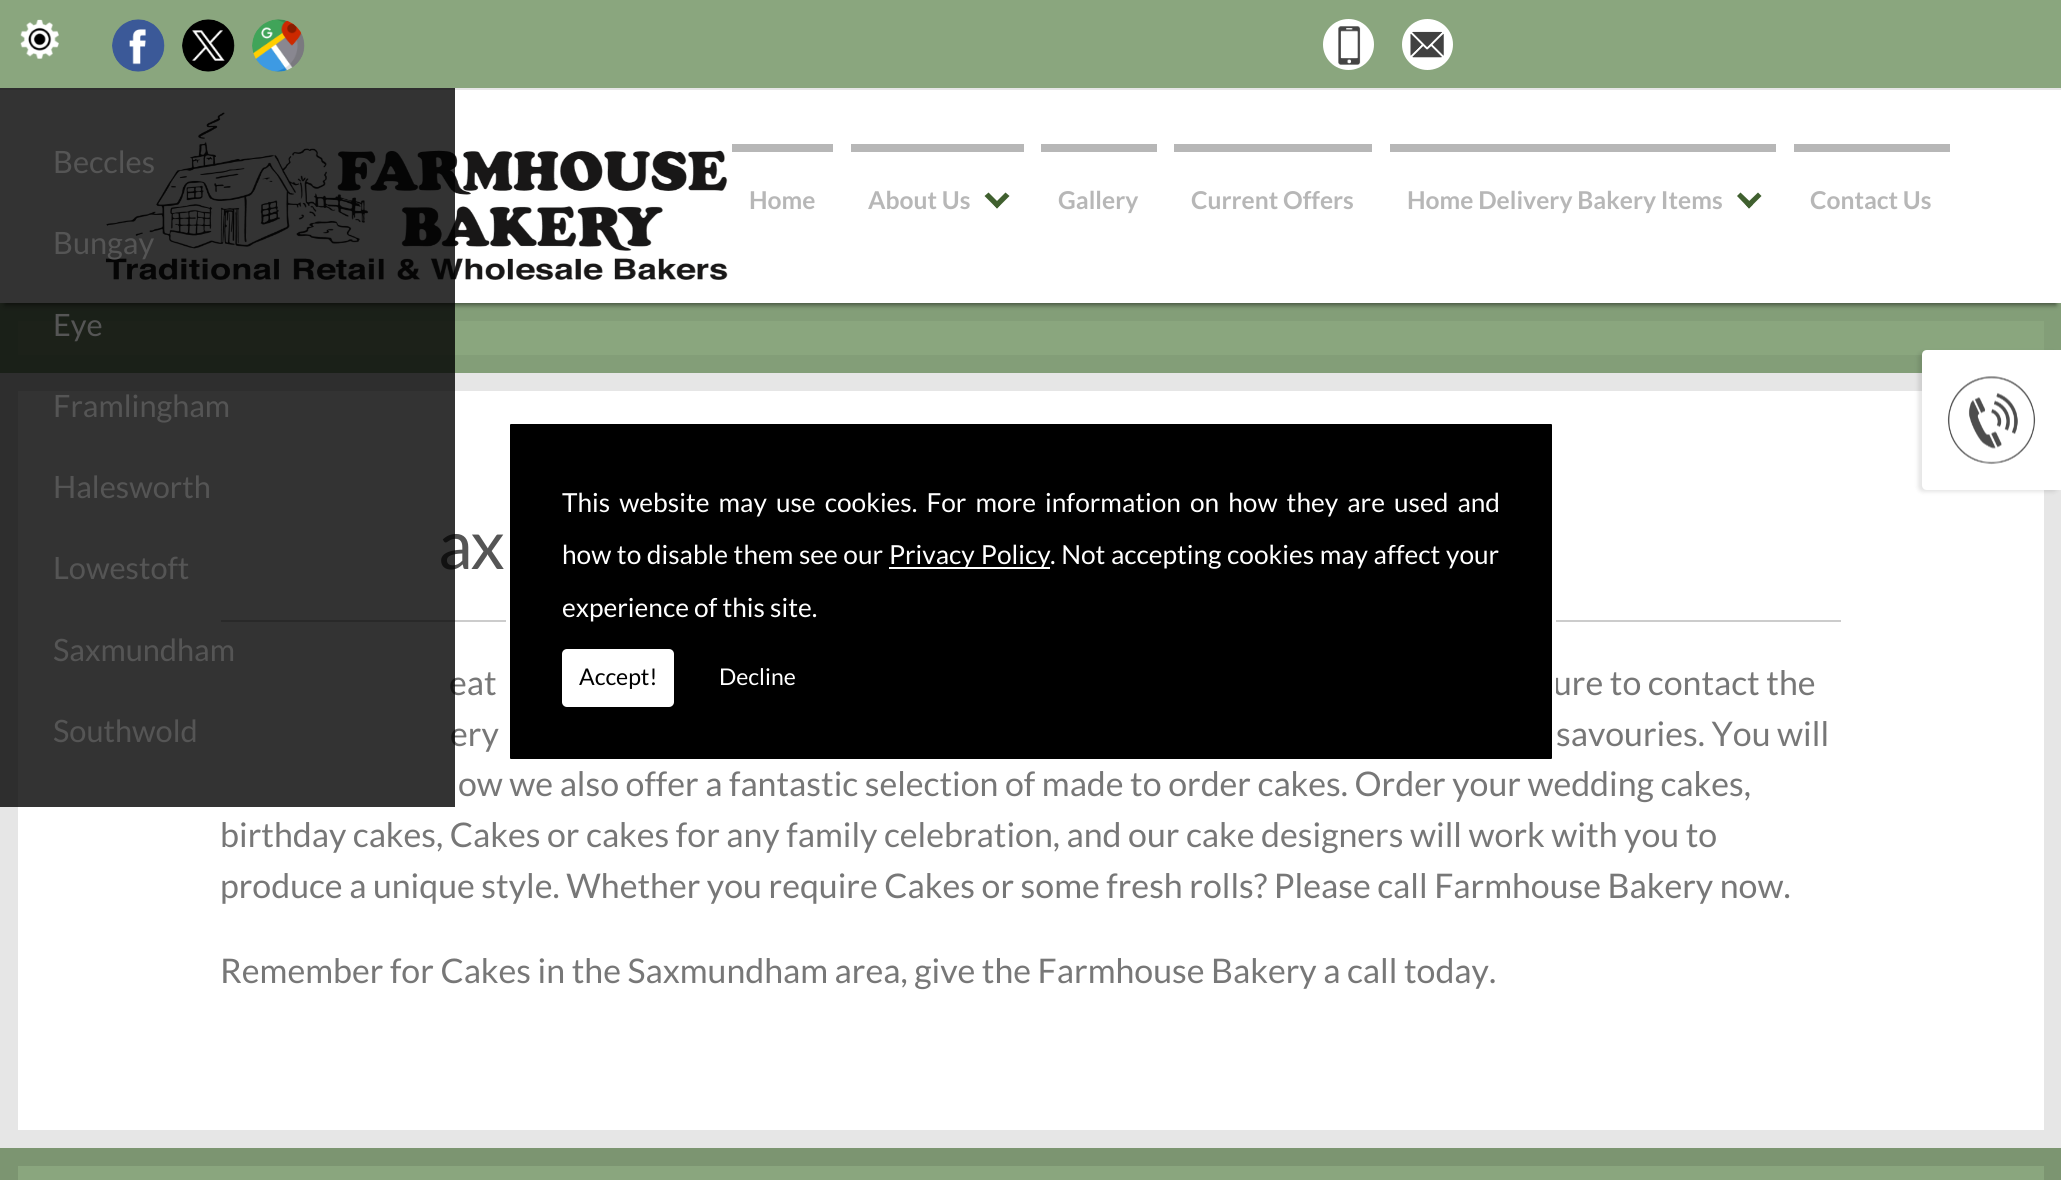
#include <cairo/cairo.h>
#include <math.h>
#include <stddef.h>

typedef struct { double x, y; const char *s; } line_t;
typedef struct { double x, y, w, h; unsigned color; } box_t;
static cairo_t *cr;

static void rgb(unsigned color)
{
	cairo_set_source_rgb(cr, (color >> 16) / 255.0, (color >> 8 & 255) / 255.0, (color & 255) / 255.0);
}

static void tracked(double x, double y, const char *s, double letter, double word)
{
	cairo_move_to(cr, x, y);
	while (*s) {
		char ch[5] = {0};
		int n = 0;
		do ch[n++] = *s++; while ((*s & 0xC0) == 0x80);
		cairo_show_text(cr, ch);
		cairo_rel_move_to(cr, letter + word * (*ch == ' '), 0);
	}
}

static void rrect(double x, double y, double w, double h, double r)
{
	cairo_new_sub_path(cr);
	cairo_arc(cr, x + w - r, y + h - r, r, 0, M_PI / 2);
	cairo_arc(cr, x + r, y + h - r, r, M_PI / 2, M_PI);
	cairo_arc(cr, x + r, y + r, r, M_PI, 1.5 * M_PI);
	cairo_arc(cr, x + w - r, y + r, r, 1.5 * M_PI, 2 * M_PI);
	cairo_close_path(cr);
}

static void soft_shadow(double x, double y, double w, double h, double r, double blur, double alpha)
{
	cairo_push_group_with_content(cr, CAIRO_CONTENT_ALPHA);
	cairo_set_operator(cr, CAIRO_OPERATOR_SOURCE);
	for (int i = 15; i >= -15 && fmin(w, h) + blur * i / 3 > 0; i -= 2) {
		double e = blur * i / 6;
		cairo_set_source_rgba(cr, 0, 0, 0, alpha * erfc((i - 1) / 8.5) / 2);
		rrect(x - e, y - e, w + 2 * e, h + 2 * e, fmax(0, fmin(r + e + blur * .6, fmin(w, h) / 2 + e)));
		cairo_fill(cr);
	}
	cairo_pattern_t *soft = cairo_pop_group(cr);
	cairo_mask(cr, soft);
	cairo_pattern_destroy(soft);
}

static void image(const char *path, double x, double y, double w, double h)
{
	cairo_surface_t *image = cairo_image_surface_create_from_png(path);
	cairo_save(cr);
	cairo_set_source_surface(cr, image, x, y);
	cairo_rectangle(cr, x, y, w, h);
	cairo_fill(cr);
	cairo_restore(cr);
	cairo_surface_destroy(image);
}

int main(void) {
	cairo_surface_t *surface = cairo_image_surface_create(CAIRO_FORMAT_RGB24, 2061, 1180);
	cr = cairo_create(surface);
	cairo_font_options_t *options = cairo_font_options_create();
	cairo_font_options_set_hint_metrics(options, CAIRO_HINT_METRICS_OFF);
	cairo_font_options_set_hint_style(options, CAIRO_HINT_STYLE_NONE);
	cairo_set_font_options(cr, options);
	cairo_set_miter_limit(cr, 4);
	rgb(0x8aa67e);
	cairo_paint(cr);
	image("img/1.png", 20, 19, 39, 40);
	cairo_rectangle(cr, 9, 312, 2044, 52);
	rgb(0x839e78);
	cairo_set_line_width(cr, 18);
	cairo_stroke(cr);
	rgb(0x000000);
	soft_shadow(5, 100, 2051, 205, 0, 2.5, 0.5);
	rgb(0xffffff);
	cairo_rectangle(cr, 0, 90, 2061, 213);
	cairo_fill(cr);
	image("img/2.png", 105, 112, 623, 168);
	rgb(0xe6e6e6);
	cairo_rectangle(cr, 0, 88, 2061, 2);
	cairo_fill(cr);
	image("img/3.png", 112, 19, 53, 53);
	image("img/4.png", 182, 19, 53, 53);
	image("img/5.png", 252, 19, 53, 53);
	rgb(0xffffff);
	cairo_arc(cr, 1348.5, 44.5, 25.5, 0, 2 * M_PI);
	cairo_fill(cr);
	image("img/6.png", 1338, 26, 23, 39);
	cairo_arc(cr, 1427.5, 44.5, 25.5, 0, 2 * M_PI);
	cairo_fill(cr);
	image("img/7.png", 1410, 31, 34, 27);
	rgb(0xb7b7b7);
	cairo_rectangle(cr, 732, 144, 101, 8);
	cairo_fill(cr);
	cairo_rectangle(cr, 851, 144, 173, 8);
	cairo_fill(cr);
	rgb(0x40602f);
	cairo_new_path(cr);
	cairo_move_to(cr, 1005.5, 192.5);
	cairo_line_to(cr, 1009.5, 196);
	cairo_line_to(cr, 997, 208.5);
	cairo_line_to(cr, 993.5, 204.5);
	cairo_close_path(cr);
	cairo_fill(cr);
	cairo_new_path(cr);
	cairo_move_to(cr, 988.5, 192.5);
	cairo_line_to(cr, 1000.5, 204.5);
	cairo_line_to(cr, 997, 208.5);
	cairo_line_to(cr, 984.5, 196);
	cairo_close_path(cr);
	cairo_fill(cr);
	{
		static const box_t items[] = {
			{1041, 144, 116, 8, 0xb7b7b7},
			{1174, 144, 198, 8, 0xb7b7b7},
			{1390, 144, 386, 8, 0xb7b7b7},
		};
		for (size_t i = 0; i < sizeof items / sizeof *items; i++) {
			rgb(items[i].color);
			cairo_rectangle(cr, items[i].x, items[i].y, items[i].w, items[i].h);
			cairo_fill(cr);
		}
	}
	rgb(0x40602f);
	cairo_new_path(cr);
	cairo_move_to(cr, 1758, 192.5);
	cairo_line_to(cr, 1761.5, 196);
	cairo_line_to(cr, 1749, 208.5);
	cairo_line_to(cr, 1745.5, 204.5);
	cairo_close_path(cr);
	cairo_fill(cr);
	cairo_new_path(cr);
	cairo_move_to(cr, 1740.5, 192.5);
	cairo_line_to(cr, 1753, 204.5);
	cairo_line_to(cr, 1749, 208.5);
	cairo_line_to(cr, 1737, 196);
	cairo_close_path(cr);
	cairo_fill(cr);
	rgb(0xb7b7b7);
	cairo_rectangle(cr, 1794, 144, 156, 8);
	cairo_fill(cr);
	rgb(0xffffff);
	cairo_rectangle(cr, 9, 382, 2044, 757);
	cairo_fill_preserve(cr);
	rgb(0xe6e6e6);
	cairo_stroke(cr);
	rgb(0x000000);
	soft_shadow(1918, 352, 140, 140, 5, 2, 0.1);
	rgb(0xffffff);
	cairo_new_path(cr);
	cairo_move_to(cr, 1927, 350);
	cairo_line_to(cr, 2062, 350);
	cairo_line_to(cr, 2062, 490);
	cairo_line_to(cr, 1927, 490);
	cairo_curve_to(cr, 1924, 490, 1922, 488, 1922, 485);
	cairo_line_to(cr, 1922, 355);
	cairo_curve_to(cr, 1922, 352, 1924, 350, 1927, 350);
	cairo_close_path(cr);
	cairo_fill(cr);
	image("img/8.png", 1947, 376, 89, 89);
	rgb(0xcccccc);
	cairo_rectangle(cr, 221, 620, 1620, 2);
	cairo_fill(cr);
	cairo_rectangle(cr, 9, 1157, 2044, 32);
	rgb(0x7c9571);
	cairo_stroke(cr);
	cairo_select_font_face(cr, "Lato", CAIRO_FONT_SLANT_NORMAL, CAIRO_FONT_WEIGHT_BOLD);
	cairo_set_font_size(cr, 24.6);
	rgb(0xb7b7b7);
	{
		static const line_t items[] = {
			{749, 209, "Home"},
			{868, 209, "About Us"},
			{1058, 209, "Gallery"},
			{1191, 209, "Current Offers"},
			{1407, 209, "Home Delivery Bakery Items"},
			{1810, 209, "Contact Us"},
		};
		for (size_t i = 0; i < sizeof items / sizeof *items; i++) {
			cairo_move_to(cr, items[i].x, items[i].y);
			cairo_show_text(cr, items[i].s);
		}
	}
	cairo_select_font_face(cr, "Lato", CAIRO_FONT_SLANT_NORMAL, CAIRO_FONT_WEIGHT_NORMAL);
	cairo_set_font_size(cr, 68);
	rgb(0x555555);
	tracked(438, 569, "ax", -2, 0);
	cairo_set_font_size(cr, 33.9);
	rgb(0x777777);
	{
		static const line_t items[] = {
			{449, 695, "eat"},
			{1553, 695, "ure to contact the"},
			{450, 746, "ery"},
		};
		for (size_t i = 0; i < sizeof items / sizeof *items; i++) {
			cairo_move_to(cr, items[i].x, items[i].y);
			cairo_show_text(cr, items[i].s);
		}
	}
	cairo_set_source_rgba(cr, 0, 0, 0, 0.8);
	cairo_rectangle(cr, 0, 88, 455, 719);
	cairo_fill(cr);
	cairo_set_font_size(cr, 30.75);
	rgb(0x555555);
	{
		static const line_t items[] = {
			{53, 742, "Southwold"},
			{53, 661, "Saxmundham"},
			{53, 579, "Lowestoft"},
			{53, 498, "Halesworth"},
			{53, 417, "Framlingham"},
			{53, 336, "Eye"},
			{53, 254, "Bungay"},
			{53, 173, "Beccles"},
		};
		for (size_t i = 0; i < sizeof items / sizeof *items; i++) {
			cairo_move_to(cr, items[i].x, items[i].y);
			cairo_show_text(cr, items[i].s);
		}
	}
	cairo_set_font_size(cr, 33.9);
	rgb(0x777777);
	{
		static const line_t items[] = {
			{1556, 746, "savouries. You will"},
			{458, 796, "ow we also offer a fantastic selection of made to order cakes. Order your wedding cakes,"},
			{220, 847, "birthday cakes, Cakes or cakes for any family celebration, and our cake designers will work with you to"},
			{220, 898, "produce a unique style. Whether you require Cakes or some fresh rolls? Please call Farmhouse Bakery now."},
			{220, 983, "Remember for Cakes in the Saxmundham area, give the Farmhouse Bakery a call today."},
		};
		for (size_t i = 0; i < sizeof items / sizeof *items; i++) {
			cairo_move_to(cr, items[i].x, items[i].y);
			cairo_show_text(cr, items[i].s);
		}
	}
	rgb(0x000000);
	rrect(508, 422, 1046, 339, 3);
	cairo_fill_preserve(cr);
	rgb(0xffffff);
	cairo_set_line_width(cr, 4);
	cairo_stroke(cr);
	cairo_set_font_size(cr, 26.25);
	tracked(562, 512, "This website may use cookies. For more information on how they are used and", 0, 4);
	tracked(562, 564, "how to disable them see our", 0, 0.5);
	cairo_rectangle(cr, 889, 567, 161, 2);
	cairo_fill(cr);
	tracked(889, 564, "Privacy Policy", 0, 1);
	tracked(1050, 564, ". Not accepting cookies may affect your", 0, 0.5);
	cairo_move_to(cr, 562, 617);
	cairo_show_text(cr, "experience of this site.");
	rrect(562, 649, 112, 58, 5);
	cairo_fill(cr);
	cairo_set_font_size(cr, 23);
	rgb(0x000000);
	cairo_move_to(cr, 579, 685);
	cairo_show_text(cr, "Accept!");
	rgb(0xffffff);
	cairo_move_to(cr, 719, 685);
	cairo_show_text(cr, "Decline");
	cairo_surface_write_to_png(surface, "page.png");
	cairo_font_options_destroy(options);
	cairo_destroy(cr);
	cairo_surface_destroy(surface);
	return 0;
}
